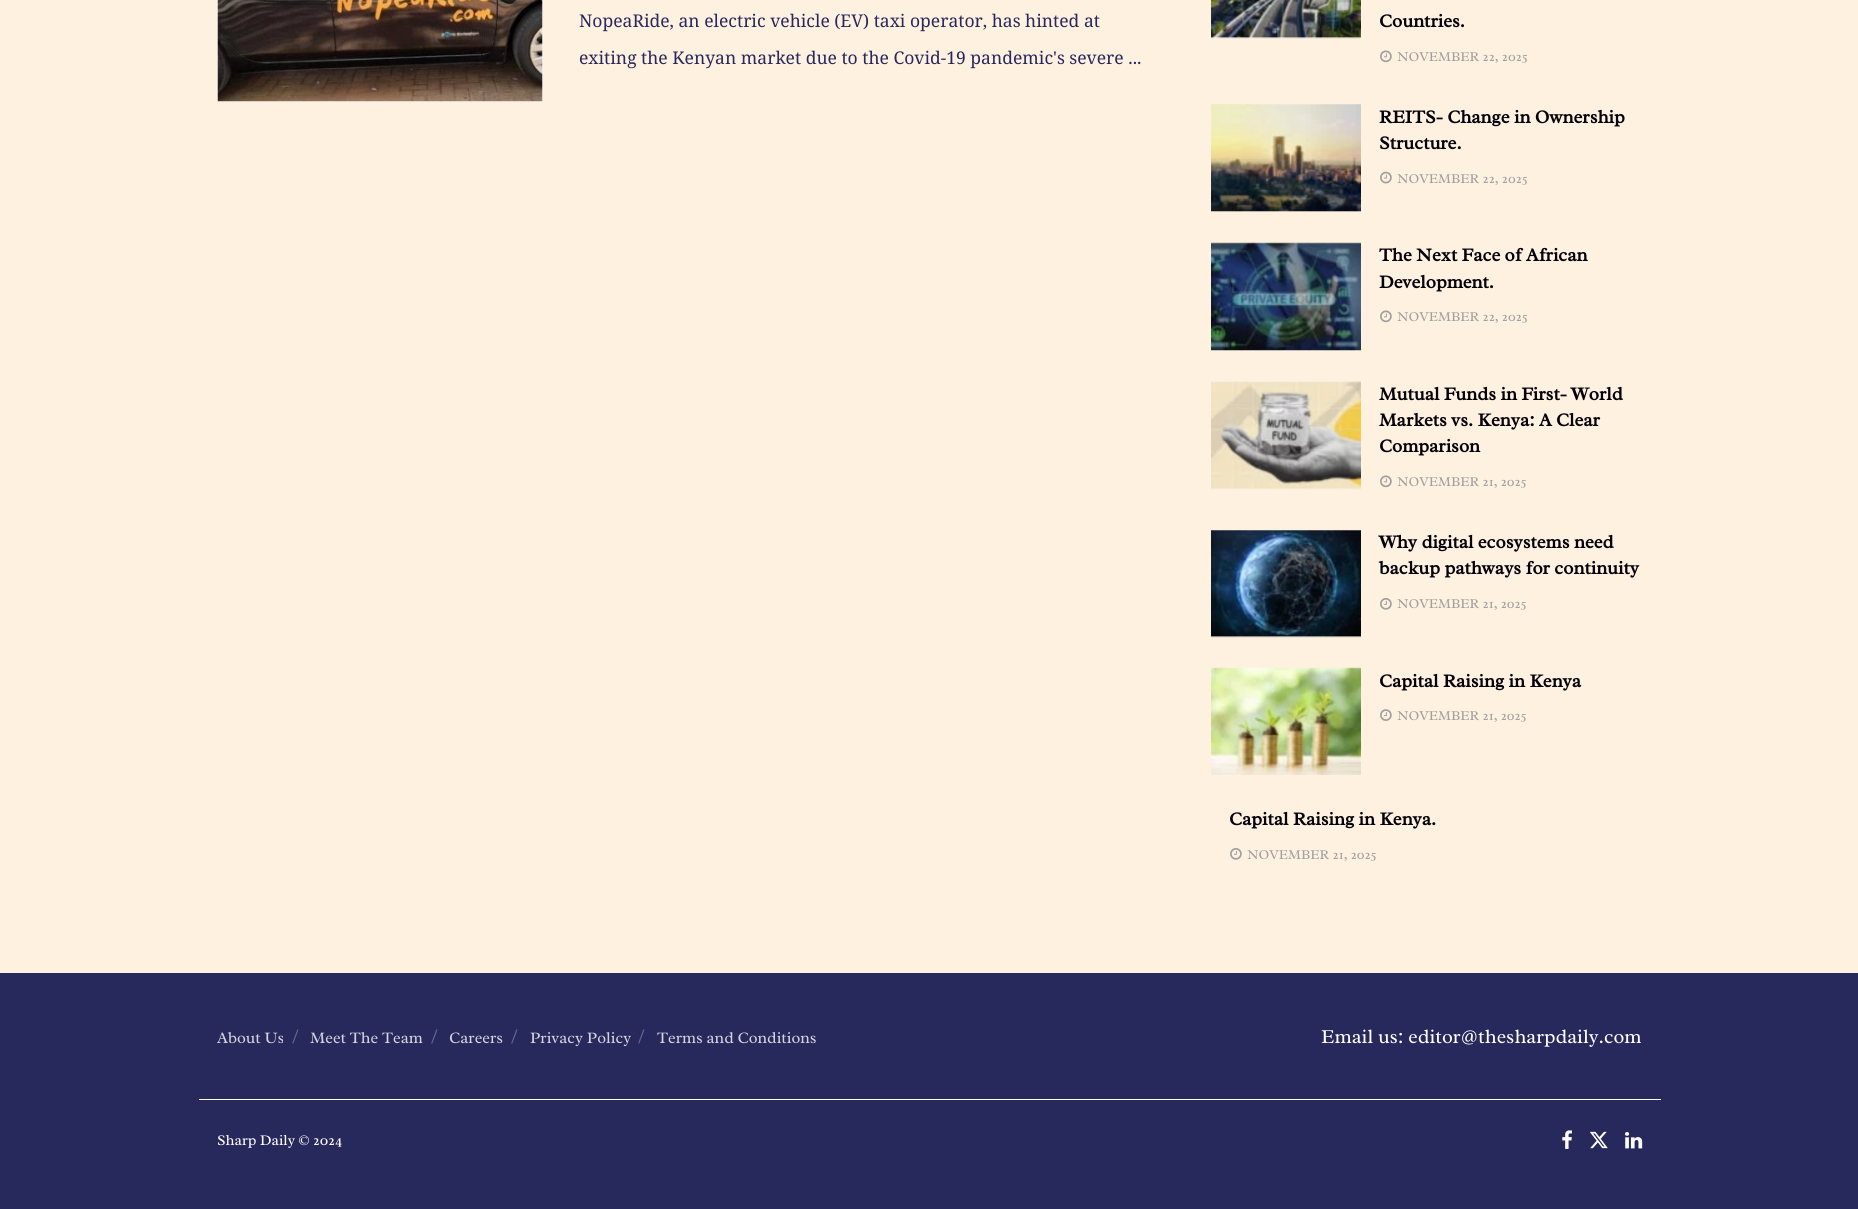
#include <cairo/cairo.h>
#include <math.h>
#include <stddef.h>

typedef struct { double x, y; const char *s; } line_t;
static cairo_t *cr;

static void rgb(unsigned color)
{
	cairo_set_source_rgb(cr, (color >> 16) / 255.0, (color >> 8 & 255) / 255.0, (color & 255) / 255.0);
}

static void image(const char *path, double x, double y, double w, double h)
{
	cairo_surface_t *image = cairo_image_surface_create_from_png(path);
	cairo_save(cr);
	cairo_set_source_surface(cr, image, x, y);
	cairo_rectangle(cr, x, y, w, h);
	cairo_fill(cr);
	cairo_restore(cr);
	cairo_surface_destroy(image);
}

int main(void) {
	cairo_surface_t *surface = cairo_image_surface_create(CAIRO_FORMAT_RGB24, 1858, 1209);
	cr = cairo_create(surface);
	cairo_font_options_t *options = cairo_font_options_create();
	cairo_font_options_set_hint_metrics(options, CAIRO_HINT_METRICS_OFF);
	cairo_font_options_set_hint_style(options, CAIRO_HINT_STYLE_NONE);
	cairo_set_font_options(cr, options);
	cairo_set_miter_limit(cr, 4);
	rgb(0xfff1e0);
	cairo_paint(cr);
	rgb(0xf7f7f7);
	cairo_rectangle(cr, 542, 0, 1, 101);
	cairo_fill(cr);
	cairo_rectangle(cr, 217, 0, 325, 102);
	cairo_fill(cr);
	image("img/1.png", 217, 0, 326, 102);
	cairo_rectangle(cr, 1211, 37, 150, 1);
	cairo_fill(cr);
	image("img/2.png", 1211, 0, 150, 39);
	image("img/3.png", 1380, 50, 12, 13);
	rgb(0xfdf3e7);
	cairo_rectangle(cr, 1211, 211, 150, 1);
	cairo_fill(cr);
	image("img/4.png", 1211, 104, 150, 108);
	image("img/5.png", 1380, 171, 12, 13);
	rgb(0xfdf3e6);
	cairo_rectangle(cr, 1211, 350, 150, 1);
	cairo_fill(cr);
	image("img/6.png", 1211, 242, 150, 109);
	image("img/3.png", 1380, 310, 12, 13);
	rgb(0xf7f7f7);
	cairo_rectangle(cr, 1211, 381, 150, 108);
	cairo_fill(cr);
	image("img/7.png", 1211, 381, 150, 109);
	image("img/3.png", 1380, 475, 12, 13);
	rgb(0xfdf3e7);
	cairo_rectangle(cr, 1211, 636, 150, 1);
	cairo_fill(cr);
	image("img/8.png", 1211, 530, 150, 108);
	image("img/9.png", 1380, 598, 12, 12);
	image("img/10.png", 1211, 667, 150, 108);
	image("img/11.png", 1380, 709, 12, 12);
	image("img/9.png", 1230, 848, 12, 12);
	rgb(0x27285c);
	cairo_rectangle(cr, 0, 973, 1858, 236);
	cairo_fill(cr);
	rgb(0xffffff);
	cairo_rectangle(cr, 199, 1099, 1462, 1);
	cairo_fill(cr);
	image("img/12.png", 1562, 1130, 10, 19);
	image("img/13.png", 1590, 1131, 18, 18);
	image("img/14.png", 1625, 1132, 18, 17);
	cairo_select_font_face(cr, "Noto Serif", CAIRO_FONT_SLANT_NORMAL, CAIRO_FONT_WEIGHT_NORMAL);
	cairo_set_font_size(cr, 17.5);
	rgb(0x27285c);
	cairo_move_to(cr, 579, 27);
	cairo_show_text(cr, "NopeaRide, an electric vehicle (EV) taxi operator, has hinted at");
	cairo_move_to(cr, 579, 64);
	cairo_show_text(cr, "exiting the Kenyan market due to the Covid-19 pandemic's severe ...");
	cairo_select_font_face(cr, "Radley", CAIRO_FONT_SLANT_NORMAL, CAIRO_FONT_WEIGHT_BOLD);
	cairo_set_font_size(cr, 18.75);
	rgb(0x02010a);
	cairo_move_to(cr, 1379, 27);
	cairo_show_text(cr, "Countries.");
	cairo_select_font_face(cr, "Radley", CAIRO_FONT_SLANT_NORMAL, CAIRO_FONT_WEIGHT_NORMAL);
	cairo_set_font_size(cr, 13.75);
	rgb(0xa0a0a0);
	cairo_move_to(cr, 1397, 61);
	cairo_show_text(cr, "NOVEMBER 22, 2025");
	cairo_select_font_face(cr, "Radley", CAIRO_FONT_SLANT_NORMAL, CAIRO_FONT_WEIGHT_BOLD);
	cairo_set_font_size(cr, 18.75);
	rgb(0x02010a);
	cairo_move_to(cr, 1379, 123);
	cairo_show_text(cr, "REITS- Change in Ownership");
	cairo_move_to(cr, 1379, 149);
	cairo_show_text(cr, "Structure.");
	cairo_select_font_face(cr, "Radley", CAIRO_FONT_SLANT_NORMAL, CAIRO_FONT_WEIGHT_NORMAL);
	cairo_set_font_size(cr, 13.75);
	rgb(0xa0a0a0);
	cairo_move_to(cr, 1397, 183);
	cairo_show_text(cr, "NOVEMBER 22, 2025");
	cairo_select_font_face(cr, "Radley", CAIRO_FONT_SLANT_NORMAL, CAIRO_FONT_WEIGHT_BOLD);
	cairo_set_font_size(cr, 18.75);
	rgb(0x02010a);
	cairo_move_to(cr, 1379, 261);
	cairo_show_text(cr, "The Next Face of African");
	cairo_move_to(cr, 1379, 288);
	cairo_show_text(cr, "Development.");
	cairo_select_font_face(cr, "Radley", CAIRO_FONT_SLANT_NORMAL, CAIRO_FONT_WEIGHT_NORMAL);
	cairo_set_font_size(cr, 13.75);
	rgb(0xa0a0a0);
	cairo_move_to(cr, 1397, 321);
	cairo_show_text(cr, "NOVEMBER 22, 2025");
	cairo_select_font_face(cr, "Radley", CAIRO_FONT_SLANT_NORMAL, CAIRO_FONT_WEIGHT_BOLD);
	cairo_set_font_size(cr, 18.75);
	rgb(0x02010a);
	{
		static const line_t items[] = {
			{1379, 400, "Mutual Funds in First- World"},
			{1379, 426, "Markets vs. Kenya: A Clear"},
			{1379, 452, "Comparison"},
		};
		for (size_t i = 0; i < sizeof items / sizeof *items; i++) {
			cairo_move_to(cr, items[i].x, items[i].y);
			cairo_show_text(cr, items[i].s);
		}
	}
	cairo_select_font_face(cr, "Radley", CAIRO_FONT_SLANT_NORMAL, CAIRO_FONT_WEIGHT_NORMAL);
	cairo_set_font_size(cr, 13.75);
	rgb(0xa0a0a0);
	cairo_move_to(cr, 1397, 486);
	cairo_show_text(cr, "NOVEMBER 21, 2025");
	cairo_select_font_face(cr, "Radley", CAIRO_FONT_SLANT_NORMAL, CAIRO_FONT_WEIGHT_BOLD);
	cairo_set_font_size(cr, 18.75);
	rgb(0x02010a);
	cairo_move_to(cr, 1379, 548);
	cairo_show_text(cr, "Why digital ecosystems need");
	cairo_move_to(cr, 1379, 574);
	cairo_show_text(cr, "backup pathways for continuity");
	cairo_select_font_face(cr, "Radley", CAIRO_FONT_SLANT_NORMAL, CAIRO_FONT_WEIGHT_NORMAL);
	cairo_set_font_size(cr, 13.75);
	rgb(0xa0a0a0);
	cairo_move_to(cr, 1397, 608);
	cairo_show_text(cr, "NOVEMBER 21, 2025");
	cairo_select_font_face(cr, "Radley", CAIRO_FONT_SLANT_NORMAL, CAIRO_FONT_WEIGHT_BOLD);
	cairo_set_font_size(cr, 18.75);
	rgb(0x02010a);
	cairo_move_to(cr, 1379, 687);
	cairo_show_text(cr, "Capital Raising in Kenya");
	cairo_select_font_face(cr, "Radley", CAIRO_FONT_SLANT_NORMAL, CAIRO_FONT_WEIGHT_NORMAL);
	cairo_set_font_size(cr, 13.75);
	rgb(0xa0a0a0);
	cairo_move_to(cr, 1397, 720);
	cairo_show_text(cr, "NOVEMBER 21, 2025");
	cairo_select_font_face(cr, "Radley", CAIRO_FONT_SLANT_NORMAL, CAIRO_FONT_WEIGHT_BOLD);
	cairo_set_font_size(cr, 18.75);
	rgb(0x02010a);
	cairo_move_to(cr, 1229, 825);
	cairo_show_text(cr, "Capital Raising in Kenya.");
	cairo_select_font_face(cr, "Radley", CAIRO_FONT_SLANT_NORMAL, CAIRO_FONT_WEIGHT_NORMAL);
	cairo_set_font_size(cr, 13.75);
	rgb(0xa0a0a0);
	cairo_move_to(cr, 1247, 859);
	cairo_show_text(cr, "NOVEMBER 21, 2025");
	cairo_set_font_size(cr, 16.25);
	rgb(0xd4d4de);
	cairo_move_to(cr, 217, 1043);
	cairo_show_text(cr, "About Us");
	cairo_set_font_size(cr, 20);
	rgb(0x68698d);
	cairo_move_to(cr, 292, 1043);
	cairo_show_text(cr, "/");
	cairo_set_font_size(cr, 16.25);
	rgb(0xd4d4de);
	cairo_move_to(cr, 310, 1043);
	cairo_show_text(cr, "Meet The Team");
	cairo_set_font_size(cr, 20);
	rgb(0x68698d);
	cairo_move_to(cr, 431, 1043);
	cairo_show_text(cr, "/");
	cairo_set_font_size(cr, 16.25);
	rgb(0xd4d4de);
	cairo_move_to(cr, 449, 1043);
	cairo_show_text(cr, "Careers");
	cairo_set_font_size(cr, 20);
	rgb(0x68698d);
	cairo_move_to(cr, 511, 1043);
	cairo_show_text(cr, "/");
	cairo_set_font_size(cr, 16.25);
	rgb(0xd4d4de);
	cairo_move_to(cr, 530, 1043);
	cairo_show_text(cr, "Privacy Policy");
	cairo_set_font_size(cr, 20);
	rgb(0x68698d);
	cairo_move_to(cr, 638, 1043);
	cairo_show_text(cr, "/");
	cairo_set_font_size(cr, 16.25);
	rgb(0xd4d4de);
	cairo_move_to(cr, 657, 1043);
	cairo_show_text(cr, "Terms and Conditions");
	cairo_set_font_size(cr, 20);
	rgb(0xffffff);
	cairo_move_to(cr, 1321, 1043);
	cairo_show_text(cr, "Email us: editor@thesharpdaily.com");
	cairo_set_font_size(cr, 15);
	cairo_move_to(cr, 217, 1145);
	cairo_show_text(cr, "Sharp Daily © 2024");
	cairo_surface_write_to_png(surface, "page.png");
	cairo_font_options_destroy(options);
	cairo_destroy(cr);
	cairo_surface_destroy(surface);
	return 0;
}
